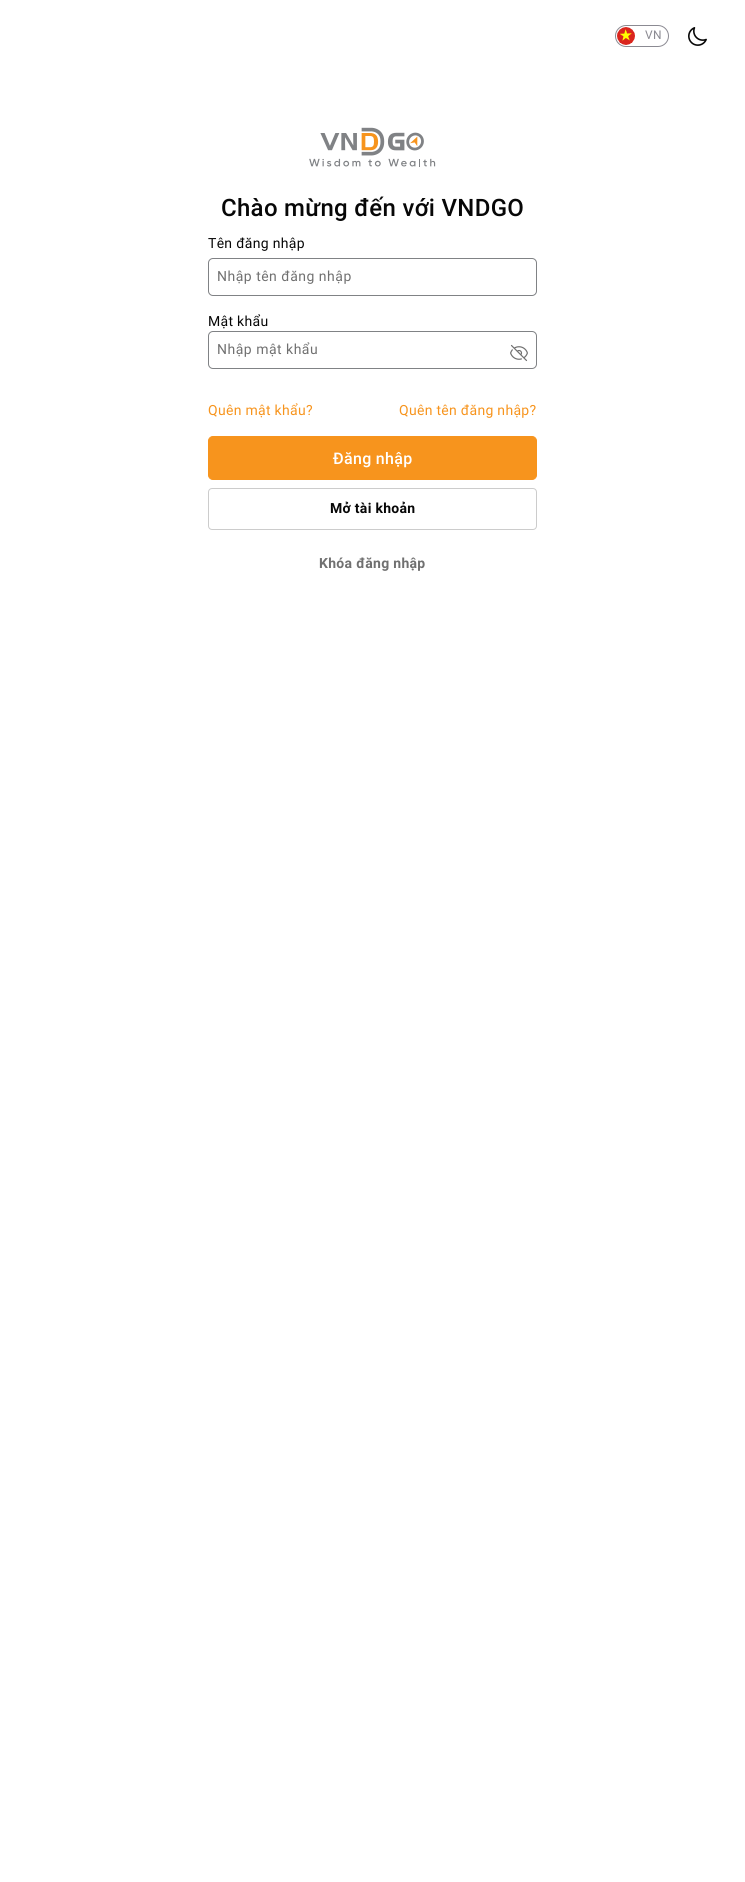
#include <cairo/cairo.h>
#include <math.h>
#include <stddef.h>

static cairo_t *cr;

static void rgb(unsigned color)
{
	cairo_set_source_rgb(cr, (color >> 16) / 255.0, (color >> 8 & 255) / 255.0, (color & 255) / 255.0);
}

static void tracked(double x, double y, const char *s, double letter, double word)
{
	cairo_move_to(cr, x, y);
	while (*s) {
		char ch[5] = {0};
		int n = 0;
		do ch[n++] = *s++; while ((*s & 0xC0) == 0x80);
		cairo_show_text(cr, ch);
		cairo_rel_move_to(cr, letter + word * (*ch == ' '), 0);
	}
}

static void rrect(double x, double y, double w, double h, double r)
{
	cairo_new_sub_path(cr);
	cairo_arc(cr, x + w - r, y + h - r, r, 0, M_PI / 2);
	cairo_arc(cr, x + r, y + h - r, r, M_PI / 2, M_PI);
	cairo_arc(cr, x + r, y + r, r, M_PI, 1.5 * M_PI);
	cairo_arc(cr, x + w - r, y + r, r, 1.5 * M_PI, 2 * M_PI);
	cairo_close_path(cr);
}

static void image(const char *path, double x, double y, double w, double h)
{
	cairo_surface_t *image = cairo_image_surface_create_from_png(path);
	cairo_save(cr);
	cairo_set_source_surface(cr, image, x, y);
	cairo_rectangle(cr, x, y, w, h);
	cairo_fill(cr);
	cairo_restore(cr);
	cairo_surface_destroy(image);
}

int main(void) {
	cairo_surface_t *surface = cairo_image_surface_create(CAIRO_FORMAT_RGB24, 745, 1882);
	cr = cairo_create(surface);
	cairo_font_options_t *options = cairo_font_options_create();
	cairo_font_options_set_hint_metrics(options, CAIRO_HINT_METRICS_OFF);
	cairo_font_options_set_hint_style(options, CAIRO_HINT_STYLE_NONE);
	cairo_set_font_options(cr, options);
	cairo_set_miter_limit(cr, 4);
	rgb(0xffffff);
	cairo_paint(cr);
	rrect(615.5, 25.5, 53, 21, 10.5);
	rgb(0x8b8a92);
	cairo_set_line_width(cr, 1);
	cairo_stroke(cr);
	image("img/1.png", 617, 27, 18, 18);
	image("img/2.png", 688, 27, 19, 19);
	image("img/3.png", 309, 127, 127, 40);
	rrect(208.5, 258.5, 328, 37, 4.5);
	rgb(0x808285);
	cairo_stroke(cr);
	rrect(208.5, 331.5, 328, 37, 4.5);
	cairo_stroke(cr);
	image("img/4.png", 510, 344, 18, 18);
	rgb(0xf7941d);
	rrect(208.5, 436.5, 328, 43, 4.5);
	cairo_fill_preserve(cr);
	cairo_stroke(cr);
	rrect(208.5, 488.5, 328, 41, 3.5);
	rgb(0xcccccc);
	cairo_stroke(cr);
	cairo_select_font_face(cr, "Roboto", CAIRO_FONT_SLANT_NORMAL, CAIRO_FONT_WEIGHT_NORMAL);
	cairo_set_font_size(cr, 12);
	rgb(0x8b8a92);
	tracked(645, 39, "VN", 0.3, 0);
	cairo_select_font_face(cr, "Roboto Medium", CAIRO_FONT_SLANT_NORMAL, CAIRO_FONT_WEIGHT_NORMAL);
	cairo_set_font_size(cr, 24);
	rgb(0x070707);
	tracked(221, 216, "Chào mừng đến với VNDGO", 0.3, 0);
	cairo_select_font_face(cr, "Roboto", CAIRO_FONT_SLANT_NORMAL, CAIRO_FONT_WEIGHT_NORMAL);
	cairo_set_font_size(cr, 14);
	tracked(208, 248, "Tên đăng nhập", 0.3, 0);
	rgb(0x707070);
	tracked(217, 281, "Nhập tên đăng nhập", 0.5, 0);
	rgb(0x070707);
	tracked(208, 326, "Mật khẩu", 0.3, 0);
	rgb(0x707070);
	tracked(217, 354, "Nhập mật khẩu", 0.5, 0);
	rgb(0xf7941d);
	tracked(208, 415, "Quên mật khẩu?", 0.3, 0);
	tracked(399, 415, "Quên tên đăng nhập?", 0.3, 0);
	cairo_select_font_face(cr, "Roboto Medium", CAIRO_FONT_SLANT_NORMAL, CAIRO_FONT_WEIGHT_NORMAL);
	cairo_set_font_size(cr, 16);
	rgb(0xffffff);
	tracked(333, 464, "Đăng nhập", 0.3, 0);
	cairo_select_font_face(cr, "Roboto", CAIRO_FONT_SLANT_NORMAL, CAIRO_FONT_WEIGHT_BOLD);
	cairo_set_font_size(cr, 14);
	rgb(0x070707);
	tracked(330, 513, "Mở tài khoản", 0.3, 0);
	rgb(0x707070);
	tracked(319, 568, "Khóa đăng nhập", 0.3, 0);
	cairo_surface_write_to_png(surface, "page.png");
	cairo_font_options_destroy(options);
	cairo_destroy(cr);
	cairo_surface_destroy(surface);
	return 0;
}
